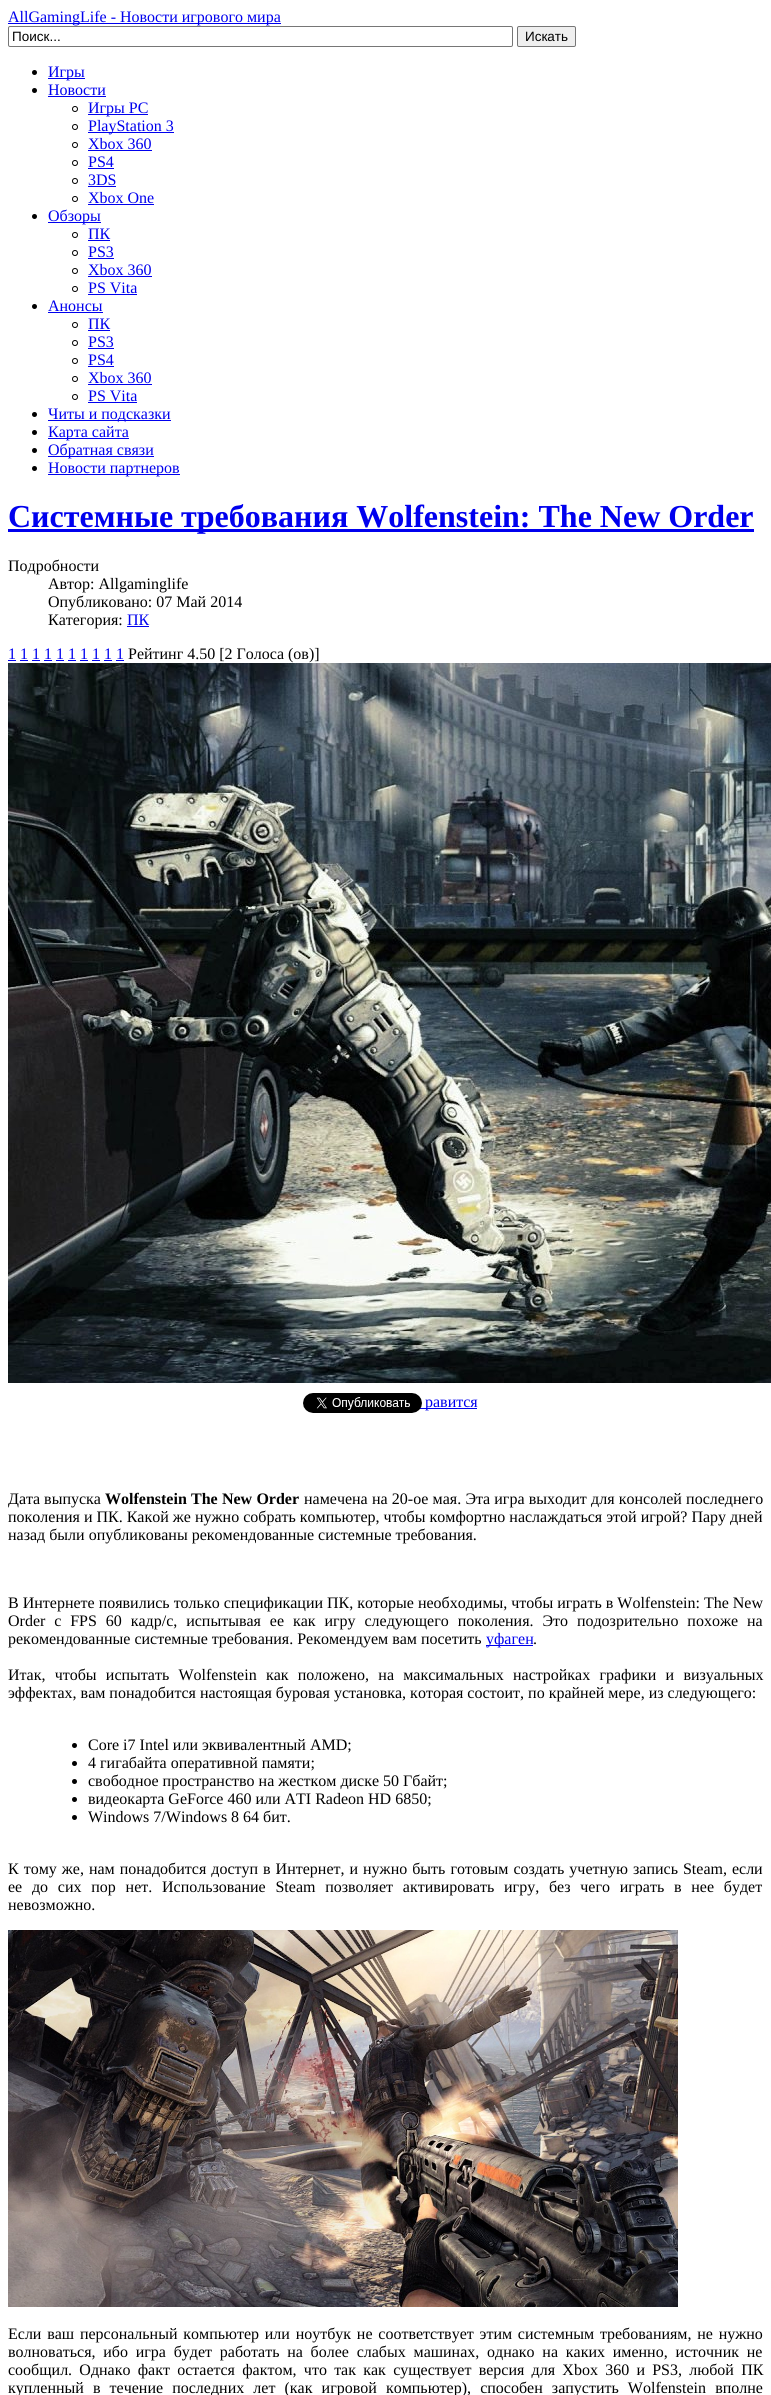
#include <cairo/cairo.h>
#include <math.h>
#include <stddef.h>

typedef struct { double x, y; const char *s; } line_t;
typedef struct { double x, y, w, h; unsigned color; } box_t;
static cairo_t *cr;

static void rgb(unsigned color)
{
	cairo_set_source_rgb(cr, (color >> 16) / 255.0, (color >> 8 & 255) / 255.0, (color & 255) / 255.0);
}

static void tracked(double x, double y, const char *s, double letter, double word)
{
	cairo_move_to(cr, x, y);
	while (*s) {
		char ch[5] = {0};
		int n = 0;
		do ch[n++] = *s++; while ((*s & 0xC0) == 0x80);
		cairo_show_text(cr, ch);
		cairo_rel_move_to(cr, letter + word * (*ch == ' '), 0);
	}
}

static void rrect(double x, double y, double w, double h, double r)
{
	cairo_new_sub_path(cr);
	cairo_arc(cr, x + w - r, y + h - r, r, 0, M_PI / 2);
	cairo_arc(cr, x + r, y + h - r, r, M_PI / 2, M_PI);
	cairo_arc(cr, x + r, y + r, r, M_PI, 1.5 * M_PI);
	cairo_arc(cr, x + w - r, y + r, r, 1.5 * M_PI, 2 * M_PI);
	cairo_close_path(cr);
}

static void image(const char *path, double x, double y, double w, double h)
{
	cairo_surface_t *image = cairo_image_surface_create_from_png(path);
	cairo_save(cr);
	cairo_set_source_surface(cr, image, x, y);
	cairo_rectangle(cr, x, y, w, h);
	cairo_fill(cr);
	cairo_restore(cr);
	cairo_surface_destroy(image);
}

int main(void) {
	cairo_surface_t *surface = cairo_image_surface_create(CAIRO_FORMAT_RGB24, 771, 2395);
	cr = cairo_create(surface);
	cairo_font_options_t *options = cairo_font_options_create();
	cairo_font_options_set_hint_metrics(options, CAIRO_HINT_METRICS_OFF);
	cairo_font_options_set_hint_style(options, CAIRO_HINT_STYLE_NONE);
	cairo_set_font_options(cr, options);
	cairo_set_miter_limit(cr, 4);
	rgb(0xffffff);
	cairo_paint(cr);
	rgb(0x0000ee);
	cairo_rectangle(cr, 8, 23, 273, 1);
	cairo_fill(cr);
	rrect(8.5, 26.5, 504, 20, 1.5);
	rgb(0x767676);
	cairo_set_line_width(cr, 1);
	cairo_stroke(cr);
	rgb(0xefefef);
	rrect(517.5, 26.5, 58, 20, 1.5);
	cairo_fill_preserve(cr);
	rgb(0x767676);
	cairo_stroke(cr);
	rgb(0x000000);
	cairo_arc(cr, 34.5, 72.5, 2.5, 0, 2 * M_PI);
	cairo_fill(cr);
	rgb(0x0000ee);
	cairo_rectangle(cr, 48, 78, 37, 1);
	cairo_fill(cr);
	rgb(0x000000);
	cairo_arc(cr, 34.5, 90.5, 2.5, 0, 2 * M_PI);
	cairo_fill(cr);
	rgb(0x0000ee);
	cairo_rectangle(cr, 48, 96, 58, 1);
	cairo_fill(cr);
	cairo_arc(cr, 75, 109, 2.5, 0, 2 * M_PI);
	rgb(0x000000);
	cairo_stroke(cr);
	rgb(0x0000ee);
	cairo_rectangle(cr, 88, 114, 60, 1);
	cairo_fill(cr);
	cairo_arc(cr, 75, 127, 2.5, 0, 2 * M_PI);
	rgb(0x000000);
	cairo_stroke(cr);
	rgb(0x0000ee);
	cairo_rectangle(cr, 88, 132, 86, 1);
	cairo_fill(cr);
	cairo_arc(cr, 75, 145, 2.5, 0, 2 * M_PI);
	rgb(0x000000);
	cairo_stroke(cr);
	rgb(0x0000ee);
	cairo_rectangle(cr, 88, 150, 64, 1);
	cairo_fill(cr);
	cairo_arc(cr, 75, 163, 2.5, 0, 2 * M_PI);
	rgb(0x000000);
	cairo_stroke(cr);
	rgb(0x0000ee);
	cairo_rectangle(cr, 88, 168, 26, 1);
	cairo_fill(cr);
	cairo_arc(cr, 75, 181, 2.5, 0, 2 * M_PI);
	rgb(0x000000);
	cairo_stroke(cr);
	rgb(0x0000ee);
	cairo_rectangle(cr, 88, 186, 28, 1);
	cairo_fill(cr);
	cairo_arc(cr, 75, 199, 2.5, 0, 2 * M_PI);
	rgb(0x000000);
	cairo_stroke(cr);
	rgb(0x0000ee);
	cairo_rectangle(cr, 88, 204, 66, 1);
	cairo_fill(cr);
	rgb(0x000000);
	cairo_arc(cr, 34.5, 216.5, 2.5, 0, 2 * M_PI);
	cairo_fill(cr);
	rgb(0x0000ee);
	cairo_rectangle(cr, 48, 222, 53, 1);
	cairo_fill(cr);
	cairo_arc(cr, 75, 235, 2.5, 0, 2 * M_PI);
	rgb(0x000000);
	cairo_stroke(cr);
	rgb(0x0000ee);
	cairo_rectangle(cr, 88, 240, 22, 1);
	cairo_fill(cr);
	cairo_arc(cr, 75, 253, 2.5, 0, 2 * M_PI);
	rgb(0x000000);
	cairo_stroke(cr);
	rgb(0x0000ee);
	cairo_rectangle(cr, 88, 258, 26, 1);
	cairo_fill(cr);
	cairo_arc(cr, 75, 271, 2.5, 0, 2 * M_PI);
	rgb(0x000000);
	cairo_stroke(cr);
	rgb(0x0000ee);
	cairo_rectangle(cr, 88, 276, 64, 1);
	cairo_fill(cr);
	cairo_arc(cr, 75, 289, 2.5, 0, 2 * M_PI);
	rgb(0x000000);
	cairo_stroke(cr);
	rgb(0x0000ee);
	cairo_rectangle(cr, 88, 294, 49, 1);
	cairo_fill(cr);
	rgb(0x000000);
	cairo_arc(cr, 34.5, 306.5, 2.5, 0, 2 * M_PI);
	cairo_fill(cr);
	rgb(0x0000ee);
	cairo_rectangle(cr, 48, 312, 55, 1);
	cairo_fill(cr);
	cairo_arc(cr, 75, 325, 2.5, 0, 2 * M_PI);
	rgb(0x000000);
	cairo_stroke(cr);
	rgb(0x0000ee);
	cairo_rectangle(cr, 88, 330, 22, 1);
	cairo_fill(cr);
	cairo_arc(cr, 75, 343, 2.5, 0, 2 * M_PI);
	rgb(0x000000);
	cairo_stroke(cr);
	rgb(0x0000ee);
	cairo_rectangle(cr, 88, 348, 26, 1);
	cairo_fill(cr);
	cairo_arc(cr, 75, 361, 2.5, 0, 2 * M_PI);
	rgb(0x000000);
	cairo_stroke(cr);
	rgb(0x0000ee);
	cairo_rectangle(cr, 88, 366, 26, 1);
	cairo_fill(cr);
	cairo_arc(cr, 75, 379, 2.5, 0, 2 * M_PI);
	rgb(0x000000);
	cairo_stroke(cr);
	rgb(0x0000ee);
	cairo_rectangle(cr, 88, 384, 64, 1);
	cairo_fill(cr);
	cairo_arc(cr, 75, 397, 2.5, 0, 2 * M_PI);
	rgb(0x000000);
	cairo_stroke(cr);
	rgb(0x0000ee);
	cairo_rectangle(cr, 88, 402, 49, 1);
	cairo_fill(cr);
	rgb(0x000000);
	cairo_arc(cr, 34.5, 414.5, 2.5, 0, 2 * M_PI);
	cairo_fill(cr);
	rgb(0x0000ee);
	cairo_rectangle(cr, 48, 420, 123, 1);
	cairo_fill(cr);
	rgb(0x000000);
	cairo_arc(cr, 34.5, 432.5, 2.5, 0, 2 * M_PI);
	cairo_fill(cr);
	rgb(0x0000ee);
	cairo_rectangle(cr, 48, 438, 81, 1);
	cairo_fill(cr);
	rgb(0x000000);
	cairo_arc(cr, 34.5, 450.5, 2.5, 0, 2 * M_PI);
	cairo_fill(cr);
	rgb(0x0000ee);
	cairo_rectangle(cr, 48, 456, 106, 1);
	cairo_fill(cr);
	rgb(0x000000);
	cairo_arc(cr, 34.5, 468.5, 2.5, 0, 2 * M_PI);
	cairo_fill(cr);
	{
		static const box_t items[] = {
			{48, 474, 132, 1, 0x0000ee},
			{8, 529, 746, 3, 0x0000ee},
			{127, 626, 22, 1, 0x0000ee},
			{8, 660, 8, 1, 0x0000ee},
			{20, 660, 8, 1, 0x0000ee},
			{32, 660, 8, 1, 0x0000ee},
			{44, 660, 8, 1, 0x0000ee},
			{56, 660, 8, 1, 0x0000ee},
			{68, 660, 8, 1, 0x0000ee},
			{80, 660, 8, 1, 0x0000ee},
			{92, 660, 8, 1, 0x0000ee},
			{104, 660, 8, 1, 0x0000ee},
			{116, 660, 8, 1, 0x0000ee},
		};
		for (size_t i = 0; i < sizeof items / sizeof *items; i++) {
			rgb(items[i].color);
			cairo_rectangle(cr, items[i].x, items[i].y, items[i].w, items[i].h);
			cairo_fill(cr);
		}
	}
	image("img/1.png", 8, 663, 763, 720);
	cairo_rectangle(cr, 413, 1408, 64, 1);
	cairo_fill(cr);
	image("img/2.png", 303, 1393, 119, 20);
	cairo_rectangle(cr, 486, 1645, 47, 1);
	cairo_fill(cr);
	rgb(0x000000);
	cairo_arc(cr, 74.5, 1745.5, 2.5, 0, 2 * M_PI);
	cairo_fill(cr);
	cairo_arc(cr, 74.5, 1763.5, 2.5, 0, 2 * M_PI);
	cairo_fill(cr);
	cairo_arc(cr, 74.5, 1781.5, 2.5, 0, 2 * M_PI);
	cairo_fill(cr);
	cairo_arc(cr, 74.5, 1799.5, 2.5, 0, 2 * M_PI);
	cairo_fill(cr);
	cairo_arc(cr, 74.5, 1817.5, 2.5, 0, 2 * M_PI);
	cairo_fill(cr);
	image("img/3.png", 8, 1930, 670, 377);
	cairo_select_font_face(cr, "Liberation Serif", CAIRO_FONT_SLANT_NORMAL, CAIRO_FONT_WEIGHT_NORMAL);
	cairo_set_font_size(cr, 16);
	rgb(0x0000ee);
	cairo_move_to(cr, 8, 22);
	cairo_show_text(cr, "AllGamingLife - Новости игрового мира");
	cairo_select_font_face(cr, "Liberation Sans", CAIRO_FONT_SLANT_NORMAL, CAIRO_FONT_WEIGHT_NORMAL);
	cairo_set_font_size(cr, 13.5);
	rgb(0x000000);
	cairo_move_to(cr, 12, 41);
	cairo_show_text(cr, "Поиск...");
	cairo_move_to(cr, 525, 41);
	cairo_show_text(cr, "Искать");
	cairo_select_font_face(cr, "Liberation Serif", CAIRO_FONT_SLANT_NORMAL, CAIRO_FONT_WEIGHT_NORMAL);
	cairo_set_font_size(cr, 16);
	rgb(0x0000ee);
	{
		static const line_t items[] = {
			{48, 77, "Игры"},
			{48, 95, "Новости"},
			{88, 113, "Игры PC"},
			{88, 131, "PlayStation 3"},
			{88, 149, "Xbox 360"},
			{88, 167, "PS4"},
			{88, 185, "3DS"},
			{88, 203, "Xbox One"},
			{48, 221, "Обзоры"},
			{88, 239, "ПК"},
			{88, 257, "PS3"},
			{88, 275, "Xbox 360"},
			{88, 293, "PS Vita"},
			{48, 311, "Анонсы"},
			{88, 329, "ПК"},
			{88, 347, "PS3"},
			{88, 365, "PS4"},
			{88, 383, "Xbox 360"},
			{88, 401, "PS Vita"},
			{48, 419, "Читы и подсказки"},
			{48, 437, "Карта сайта"},
			{48, 455, "Обратная связи"},
			{48, 473, "Новости партнеров"},
		};
		for (size_t i = 0; i < sizeof items / sizeof *items; i++) {
			cairo_move_to(cr, items[i].x, items[i].y);
			cairo_show_text(cr, items[i].s);
		}
	}
	cairo_select_font_face(cr, "Liberation Serif", CAIRO_FONT_SLANT_NORMAL, CAIRO_FONT_WEIGHT_BOLD);
	cairo_set_font_size(cr, 32);
	cairo_move_to(cr, 8, 527);
	cairo_show_text(cr, "Системные требования Wolfenstein: The New Order");
	cairo_select_font_face(cr, "Liberation Serif", CAIRO_FONT_SLANT_NORMAL, CAIRO_FONT_WEIGHT_NORMAL);
	cairo_set_font_size(cr, 16);
	rgb(0x000000);
	{
		static const line_t items[] = {
			{8, 571, "Подробности"},
			{48, 589, "Автор: Allgaminglife"},
			{48, 607, "Опубликовано: 07 Май 2014"},
			{48, 625, "Категория:"},
		};
		for (size_t i = 0; i < sizeof items / sizeof *items; i++) {
			cairo_move_to(cr, items[i].x, items[i].y);
			cairo_show_text(cr, items[i].s);
		}
	}
	rgb(0x0000ee);
	cairo_move_to(cr, 127, 625);
	cairo_show_text(cr, "ПК");
	cairo_move_to(cr, 8, 659);
	cairo_show_text(cr, "1 1 1 1 1 1 1 1 1 1");
	rgb(0x000000);
	cairo_move_to(cr, 128, 659);
	cairo_show_text(cr, "Рейтинг 4.50 [2 Голоса (ов)]");
	rgb(0x0000ee);
	cairo_move_to(cr, 425, 1407);
	cairo_show_text(cr, "равится");
	rgb(0x000000);
	cairo_move_to(cr, 8, 1504);
	cairo_show_text(cr, "Дата выпуска");
	cairo_select_font_face(cr, "Liberation Serif", CAIRO_FONT_SLANT_NORMAL, CAIRO_FONT_WEIGHT_BOLD);
	tracked(105, 1504, "Wolfenstein The New Order", 0, 0.25);
	cairo_select_font_face(cr, "Liberation Serif", CAIRO_FONT_SLANT_NORMAL, CAIRO_FONT_WEIGHT_NORMAL);
	tracked(304, 1504, "намечена на 20-ое мая. Эта игра выходит для консолей последнего", 0, 0.25);
	{
		static const line_t items[] = {
			{8, 1522, "поколения и ПК. Какой же нужно собрать компьютер, чтобы комфортно наслаждаться этой игрой? Пару дней"},
			{8, 1540, "назад были опубликованы рекомендованные системные требования."},
			{8, 1608, "В Интернете появились только спецификации ПК, которые необходимы, чтобы играть в Wolfenstein: The New"},
		};
		for (size_t i = 0; i < sizeof items / sizeof *items; i++) {
			cairo_move_to(cr, items[i].x, items[i].y);
			cairo_show_text(cr, items[i].s);
		}
	}
	tracked(8, 1626, "Order с FPS 60 кадр/с, испытывая ее как игру следующего поколения. Это подозрительно похоже на", 0, 4.9);
	cairo_move_to(cr, 8, 1644);
	cairo_show_text(cr, "рекомендованные системные требования. Рекомендуем вам посетить");
	rgb(0x0000ee);
	cairo_move_to(cr, 486, 1644);
	cairo_show_text(cr, "уфаген");
	rgb(0x000000);
	cairo_move_to(cr, 533, 1644);
	cairo_show_text(cr, ".");
	tracked(8, 1680, "Итак, чтобы испытать Wolfenstein как положено, на максимальных настройках графики и визуальных", 0, 5.25);
	{
		static const line_t items[] = {
			{8, 1698, "эффектах, вам понадобится настоящая буровая установка, которая состоит, по крайней мере, из следующего:"},
			{88, 1750, "Core i7 Intel или эквивалентный AMD;"},
			{88, 1768, "4 гигабайта оперативной памяти;"},
			{88, 1786, "свободное пространство на жестком диске 50 Гбайт;"},
			{88, 1804, "видеокарта GeForce 460 или ATI Radeon HD 6850;"},
			{88, 1822, "Windows 7/Windows 8 64 бит."},
		};
		for (size_t i = 0; i < sizeof items / sizeof *items; i++) {
			cairo_move_to(cr, items[i].x, items[i].y);
			cairo_show_text(cr, items[i].s);
		}
	}
	tracked(8, 1874, "К тому же, нам понадобится доступ в Интернет, и нужно быть готовым создать учетную запись Steam, если", 0, 1);
	tracked(8, 1892, "ее до сих пор нет. Использование Steam позволяет активировать игру, без чего играть в нее будет", 0, 5.75);
	cairo_move_to(cr, 8, 1910);
	cairo_show_text(cr, "невозможно.");
	tracked(8, 2339, "Если ваш персональный компьютер или ноутбук не соответствует этим системным требованиям, не нужно", 0, 1.75);
	tracked(8, 2357, "волноваться, ибо игра будет работать на более слабых машинах, однако на каких именно, источник не", 0, 3.75);
	tracked(8, 2375, "сообщил. Однако факт остается фактом, что так как существует версия для Xbox 360 и PS3, любой ПК", 0, 3.25);
	tracked(8, 2393, "купленный в течение последних лет (как игровой компьютер), способен запустить Wolfenstein вполне", 0, 5.1);
	cairo_surface_write_to_png(surface, "page.png");
	cairo_font_options_destroy(options);
	cairo_destroy(cr);
	cairo_surface_destroy(surface);
	return 0;
}
